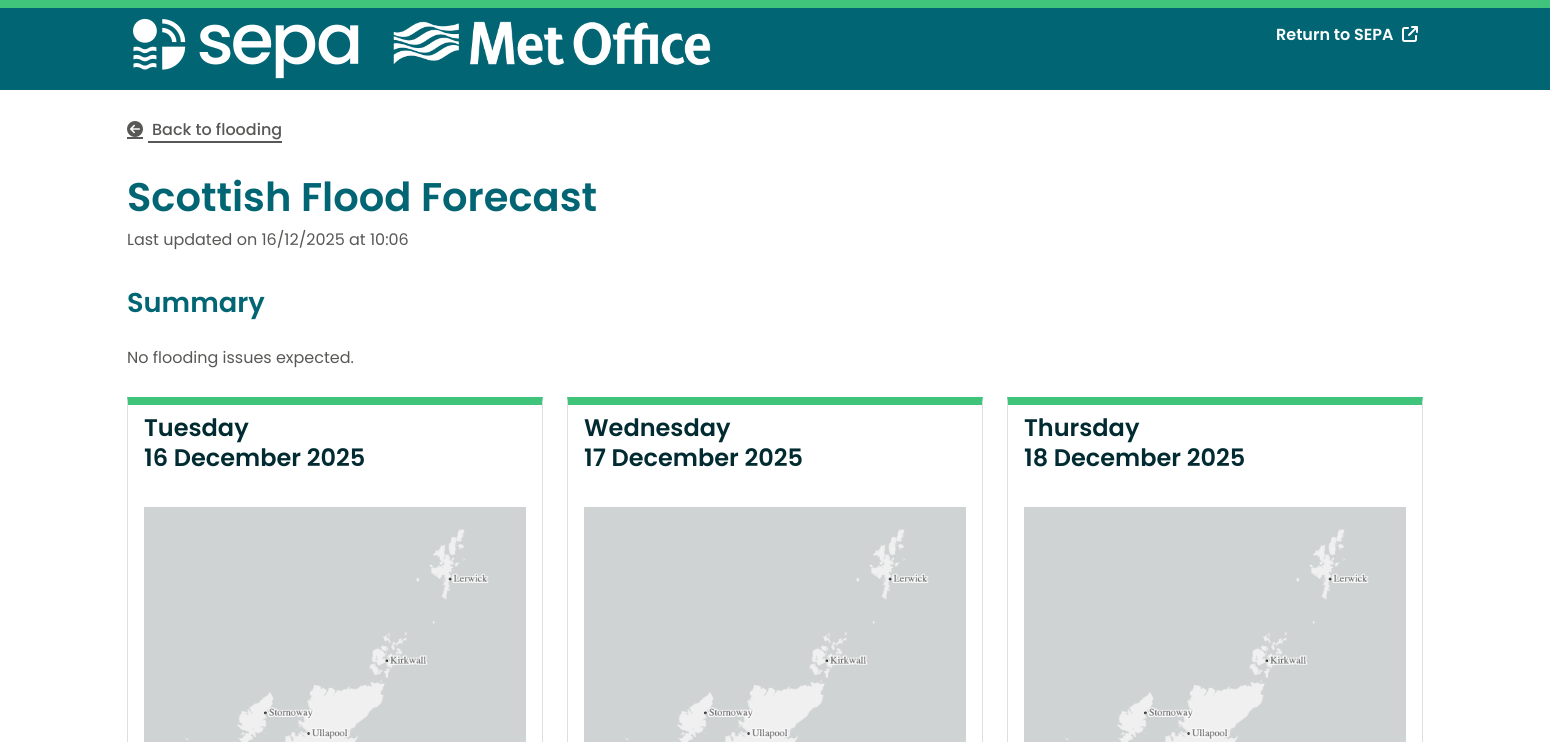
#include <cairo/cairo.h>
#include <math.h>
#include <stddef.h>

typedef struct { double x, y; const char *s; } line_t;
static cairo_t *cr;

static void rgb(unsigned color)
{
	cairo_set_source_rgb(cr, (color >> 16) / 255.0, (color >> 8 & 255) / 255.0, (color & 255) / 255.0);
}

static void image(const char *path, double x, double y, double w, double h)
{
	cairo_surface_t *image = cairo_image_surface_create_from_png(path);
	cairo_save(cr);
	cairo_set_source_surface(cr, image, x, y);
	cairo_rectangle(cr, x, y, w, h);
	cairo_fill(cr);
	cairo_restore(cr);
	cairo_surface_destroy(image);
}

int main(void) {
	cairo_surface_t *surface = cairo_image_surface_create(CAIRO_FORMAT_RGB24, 1550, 742);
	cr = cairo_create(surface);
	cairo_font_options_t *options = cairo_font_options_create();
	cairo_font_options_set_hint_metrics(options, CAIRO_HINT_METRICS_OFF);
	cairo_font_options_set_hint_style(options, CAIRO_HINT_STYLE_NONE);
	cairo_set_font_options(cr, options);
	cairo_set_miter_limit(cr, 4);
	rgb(0xffffff);
	cairo_paint(cr);
	rgb(0x016574);
	cairo_rectangle(cr, 0, 8, 1550, 82);
	cairo_fill(cr);
	rgb(0x40c47b);
	cairo_rectangle(cr, 0, 0, 1550, 8);
	cairo_fill(cr);
	image("img/1.png", 133, 18, 226, 61);
	image("img/2.png", 393, 21, 318, 45);
	image("img/3.png", 1402, 26, 16, 16);
	rgb(0x585856);
	cairo_rectangle(cr, 127, 137, 16, 2);
	cairo_fill(cr);
	cairo_rectangle(cr, 148, 141, 134, 2);
	cairo_fill(cr);
	image("img/4.png", 127, 121, 16, 16);
	rgb(0x40c47b);
	cairo_new_path(cr);
	cairo_move_to(cr, 127, 397);
	cairo_line_to(cr, 543, 397);
	cairo_line_to(cr, 542, 405);
	cairo_line_to(cr, 128, 405);
	cairo_close_path(cr);
	cairo_fill(cr);
	rgb(0xdfdfdf);
	cairo_new_path(cr);
	cairo_move_to(cr, 543, 397);
	cairo_line_to(cr, 543, 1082);
	cairo_line_to(cr, 542, 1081);
	cairo_line_to(cr, 542, 405);
	cairo_close_path(cr);
	cairo_fill(cr);
	cairo_new_path(cr);
	cairo_move_to(cr, 127, 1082);
	cairo_line_to(cr, 127, 397);
	cairo_line_to(cr, 128, 405);
	cairo_line_to(cr, 128, 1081);
	cairo_close_path(cr);
	cairo_fill(cr);
	rgb(0xcfd3d4);
	cairo_rectangle(cr, 144, 507, 382, 235);
	cairo_fill(cr);
	image("img/5.png", 185, 529, 304, 213);
	rgb(0x40c47b);
	cairo_new_path(cr);
	cairo_move_to(cr, 567, 397);
	cairo_line_to(cr, 983, 397);
	cairo_line_to(cr, 982, 405);
	cairo_line_to(cr, 568, 405);
	cairo_close_path(cr);
	cairo_fill(cr);
	rgb(0xdfdfdf);
	cairo_new_path(cr);
	cairo_move_to(cr, 983, 397);
	cairo_line_to(cr, 983, 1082);
	cairo_line_to(cr, 982, 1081);
	cairo_line_to(cr, 982, 405);
	cairo_close_path(cr);
	cairo_fill(cr);
	cairo_new_path(cr);
	cairo_move_to(cr, 567, 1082);
	cairo_line_to(cr, 567, 397);
	cairo_line_to(cr, 568, 405);
	cairo_line_to(cr, 568, 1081);
	cairo_close_path(cr);
	cairo_fill(cr);
	rgb(0xcfd3d4);
	cairo_rectangle(cr, 584, 507, 382, 235);
	cairo_fill(cr);
	image("img/6.png", 625, 529, 304, 213);
	rgb(0x40c47b);
	cairo_new_path(cr);
	cairo_move_to(cr, 1007, 397);
	cairo_line_to(cr, 1423, 397);
	cairo_line_to(cr, 1422, 405);
	cairo_line_to(cr, 1008, 405);
	cairo_close_path(cr);
	cairo_fill(cr);
	rgb(0xdfdfdf);
	cairo_new_path(cr);
	cairo_move_to(cr, 1423, 397);
	cairo_line_to(cr, 1423, 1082);
	cairo_line_to(cr, 1422, 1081);
	cairo_line_to(cr, 1422, 405);
	cairo_close_path(cr);
	cairo_fill(cr);
	cairo_new_path(cr);
	cairo_move_to(cr, 1007, 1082);
	cairo_line_to(cr, 1007, 397);
	cairo_line_to(cr, 1008, 405);
	cairo_line_to(cr, 1008, 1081);
	cairo_close_path(cr);
	cairo_fill(cr);
	rgb(0xcfd3d4);
	cairo_rectangle(cr, 1024, 507, 382, 235);
	cairo_fill(cr);
	image("img/7.png", 1065, 529, 304, 213);
	cairo_select_font_face(cr, "Poppins SemiBold", CAIRO_FONT_SLANT_NORMAL, CAIRO_FONT_WEIGHT_NORMAL);
	cairo_set_font_size(cr, 16);
	rgb(0xffffff);
	cairo_move_to(cr, 1276, 40);
	cairo_show_text(cr, "Return to SEPA");
	cairo_select_font_face(cr, "Poppins Medium", CAIRO_FONT_SLANT_NORMAL, CAIRO_FONT_WEIGHT_NORMAL);
	rgb(0x585856);
	cairo_move_to(cr, 152, 135);
	cairo_show_text(cr, "Back to flooding");
	cairo_select_font_face(cr, "Poppins SemiBold", CAIRO_FONT_SLANT_NORMAL, CAIRO_FONT_WEIGHT_NORMAL);
	cairo_set_font_size(cr, 40);
	rgb(0x016574);
	cairo_move_to(cr, 127, 211);
	cairo_show_text(cr, "Scottish Flood Forecast");
	cairo_select_font_face(cr, "Poppins", CAIRO_FONT_SLANT_NORMAL, CAIRO_FONT_WEIGHT_NORMAL);
	cairo_set_font_size(cr, 16);
	rgb(0x585856);
	cairo_move_to(cr, 127, 245);
	cairo_show_text(cr, "Last updated on 16/12/2025 at 10:06");
	cairo_select_font_face(cr, "Poppins SemiBold", CAIRO_FONT_SLANT_NORMAL, CAIRO_FONT_WEIGHT_NORMAL);
	cairo_set_font_size(cr, 27.25);
	rgb(0x016574);
	cairo_move_to(cr, 127, 312);
	cairo_show_text(cr, "Summary");
	cairo_select_font_face(cr, "Poppins", CAIRO_FONT_SLANT_NORMAL, CAIRO_FONT_WEIGHT_NORMAL);
	cairo_set_font_size(cr, 16);
	rgb(0x585856);
	cairo_move_to(cr, 127, 363);
	cairo_show_text(cr, "No flooding issues expected.");
	cairo_select_font_face(cr, "Poppins SemiBold", CAIRO_FONT_SLANT_NORMAL, CAIRO_FONT_WEIGHT_NORMAL);
	cairo_set_font_size(cr, 24);
	rgb(0x012b31);
	{
		static const line_t items[] = {
			{144, 436, "Tuesday"},
			{144, 466, "16 December 2025"},
			{584, 436, "Wednesday"},
			{584, 466, "17 December 2025"},
			{1024, 436, "Thursday"},
			{1024, 466, "18 December 2025"},
		};
		for (size_t i = 0; i < sizeof items / sizeof *items; i++) {
			cairo_move_to(cr, items[i].x, items[i].y);
			cairo_show_text(cr, items[i].s);
		}
	}
	cairo_surface_write_to_png(surface, "page.png");
	cairo_font_options_destroy(options);
	cairo_destroy(cr);
	cairo_surface_destroy(surface);
	return 0;
}
